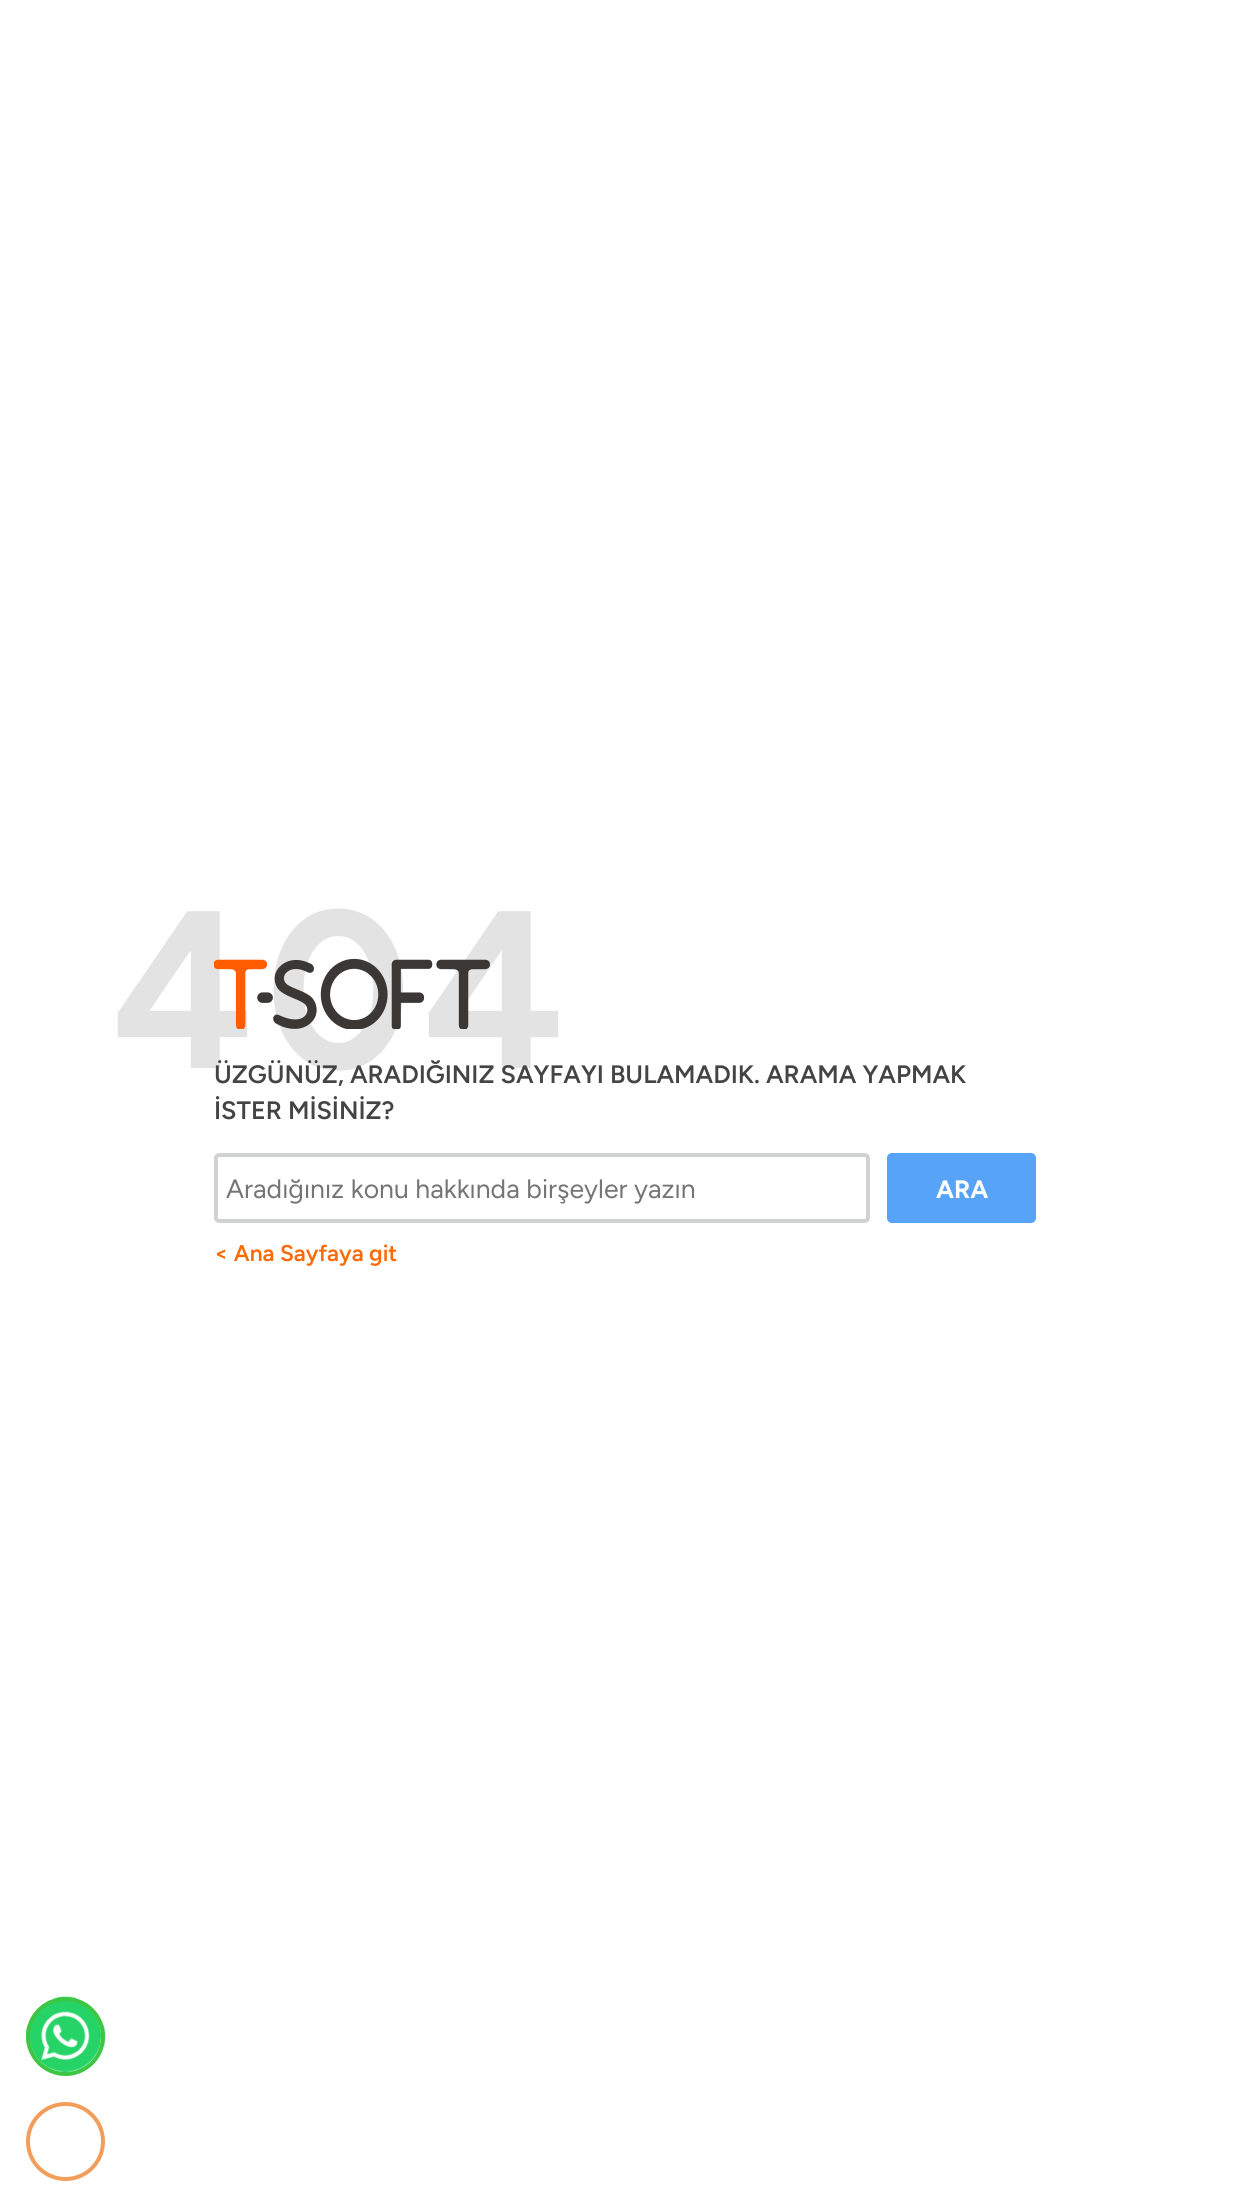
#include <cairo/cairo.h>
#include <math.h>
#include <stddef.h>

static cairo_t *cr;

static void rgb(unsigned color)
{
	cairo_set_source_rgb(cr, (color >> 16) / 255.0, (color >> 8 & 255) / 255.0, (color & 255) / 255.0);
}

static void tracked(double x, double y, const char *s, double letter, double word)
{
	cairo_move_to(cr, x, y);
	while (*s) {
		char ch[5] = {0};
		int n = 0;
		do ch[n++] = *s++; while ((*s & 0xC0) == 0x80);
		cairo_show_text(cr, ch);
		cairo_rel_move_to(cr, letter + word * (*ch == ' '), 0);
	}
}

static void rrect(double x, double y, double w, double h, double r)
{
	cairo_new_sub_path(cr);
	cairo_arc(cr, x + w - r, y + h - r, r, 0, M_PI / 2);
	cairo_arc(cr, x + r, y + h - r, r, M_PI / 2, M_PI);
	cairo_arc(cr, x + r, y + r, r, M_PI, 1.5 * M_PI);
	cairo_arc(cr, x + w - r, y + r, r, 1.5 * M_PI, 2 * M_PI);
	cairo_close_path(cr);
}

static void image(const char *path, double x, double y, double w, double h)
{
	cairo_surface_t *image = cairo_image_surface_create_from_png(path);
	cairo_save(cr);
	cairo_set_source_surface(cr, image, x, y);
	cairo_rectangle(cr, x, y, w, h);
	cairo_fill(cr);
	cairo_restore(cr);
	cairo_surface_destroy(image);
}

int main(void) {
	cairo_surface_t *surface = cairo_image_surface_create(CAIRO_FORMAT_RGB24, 1248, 2206);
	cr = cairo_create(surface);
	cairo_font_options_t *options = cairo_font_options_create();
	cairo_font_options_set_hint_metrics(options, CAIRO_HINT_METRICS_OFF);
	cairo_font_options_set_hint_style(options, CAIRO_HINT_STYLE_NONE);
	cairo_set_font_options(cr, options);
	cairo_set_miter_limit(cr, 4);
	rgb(0xffffff);
	cairo_paint(cr);
	rrect(216, 1155, 652, 66, 3);
	rgb(0xd0d1d3);
	cairo_set_line_width(cr, 4);
	cairo_stroke(cr);
	rgb(0x57a3f8);
	rrect(887, 1153, 149, 70, 5);
	cairo_fill(cr);
	image("img/2.png", 26, 1996, 80, 80);
	cairo_arc(cr, 65.5, 2036.5, 37.5, 0, 2 * M_PI);
	rgb(0x3dc643);
	cairo_stroke(cr);
	cairo_arc(cr, 65.5, 2141.5, 37.5, 0, 2 * M_PI);
	rgb(0xf39d5b);
	cairo_stroke(cr);
	cairo_select_font_face(cr, "Figtree", CAIRO_FONT_SLANT_NORMAL, CAIRO_FONT_WEIGHT_BOLD);
	cairo_set_font_size(cr, 224);
	rgb(0xe3e3e3);
	tracked(112, 1068, "404", 12, 0);
	image("img/1.png", 214, 958, 276, 71);
	cairo_select_font_face(cr, "Figtree SemiBold", CAIRO_FONT_SLANT_NORMAL, CAIRO_FONT_WEIGHT_NORMAL);
	cairo_set_font_size(cr, 25.2);
	rgb(0x444444);
	cairo_move_to(cr, 214, 1083);
	cairo_show_text(cr, "ÜZGÜNÜZ, ARADIĞINIZ SAYFAYI BULAMADIK. ARAMA YAPMAK");
	cairo_move_to(cr, 214, 1119);
	cairo_show_text(cr, "İSTER MİSİNİZ?");
	cairo_select_font_face(cr, "Figtree", CAIRO_FONT_SLANT_NORMAL, CAIRO_FONT_WEIGHT_NORMAL);
	cairo_set_font_size(cr, 26.6);
	rgb(0x757575);
	cairo_move_to(cr, 226, 1198);
	cairo_show_text(cr, "Aradığınız konu hakkında birşeyler yazın");
	cairo_select_font_face(cr, "Figtree", CAIRO_FONT_SLANT_NORMAL, CAIRO_FONT_WEIGHT_BOLD);
	cairo_set_font_size(cr, 25.2);
	rgb(0xffffff);
	cairo_move_to(cr, 936, 1198);
	cairo_show_text(cr, "ARA");
	cairo_select_font_face(cr, "Figtree SemiBold", CAIRO_FONT_SLANT_NORMAL, CAIRO_FONT_WEIGHT_NORMAL);
	cairo_set_font_size(cr, 22.75);
	rgb(0xfd6905);
	cairo_move_to(cr, 214, 1261);
	cairo_show_text(cr, "< Ana Sayfaya git");
	cairo_surface_write_to_png(surface, "page.png");
	cairo_font_options_destroy(options);
	cairo_destroy(cr);
	cairo_surface_destroy(surface);
	return 0;
}
